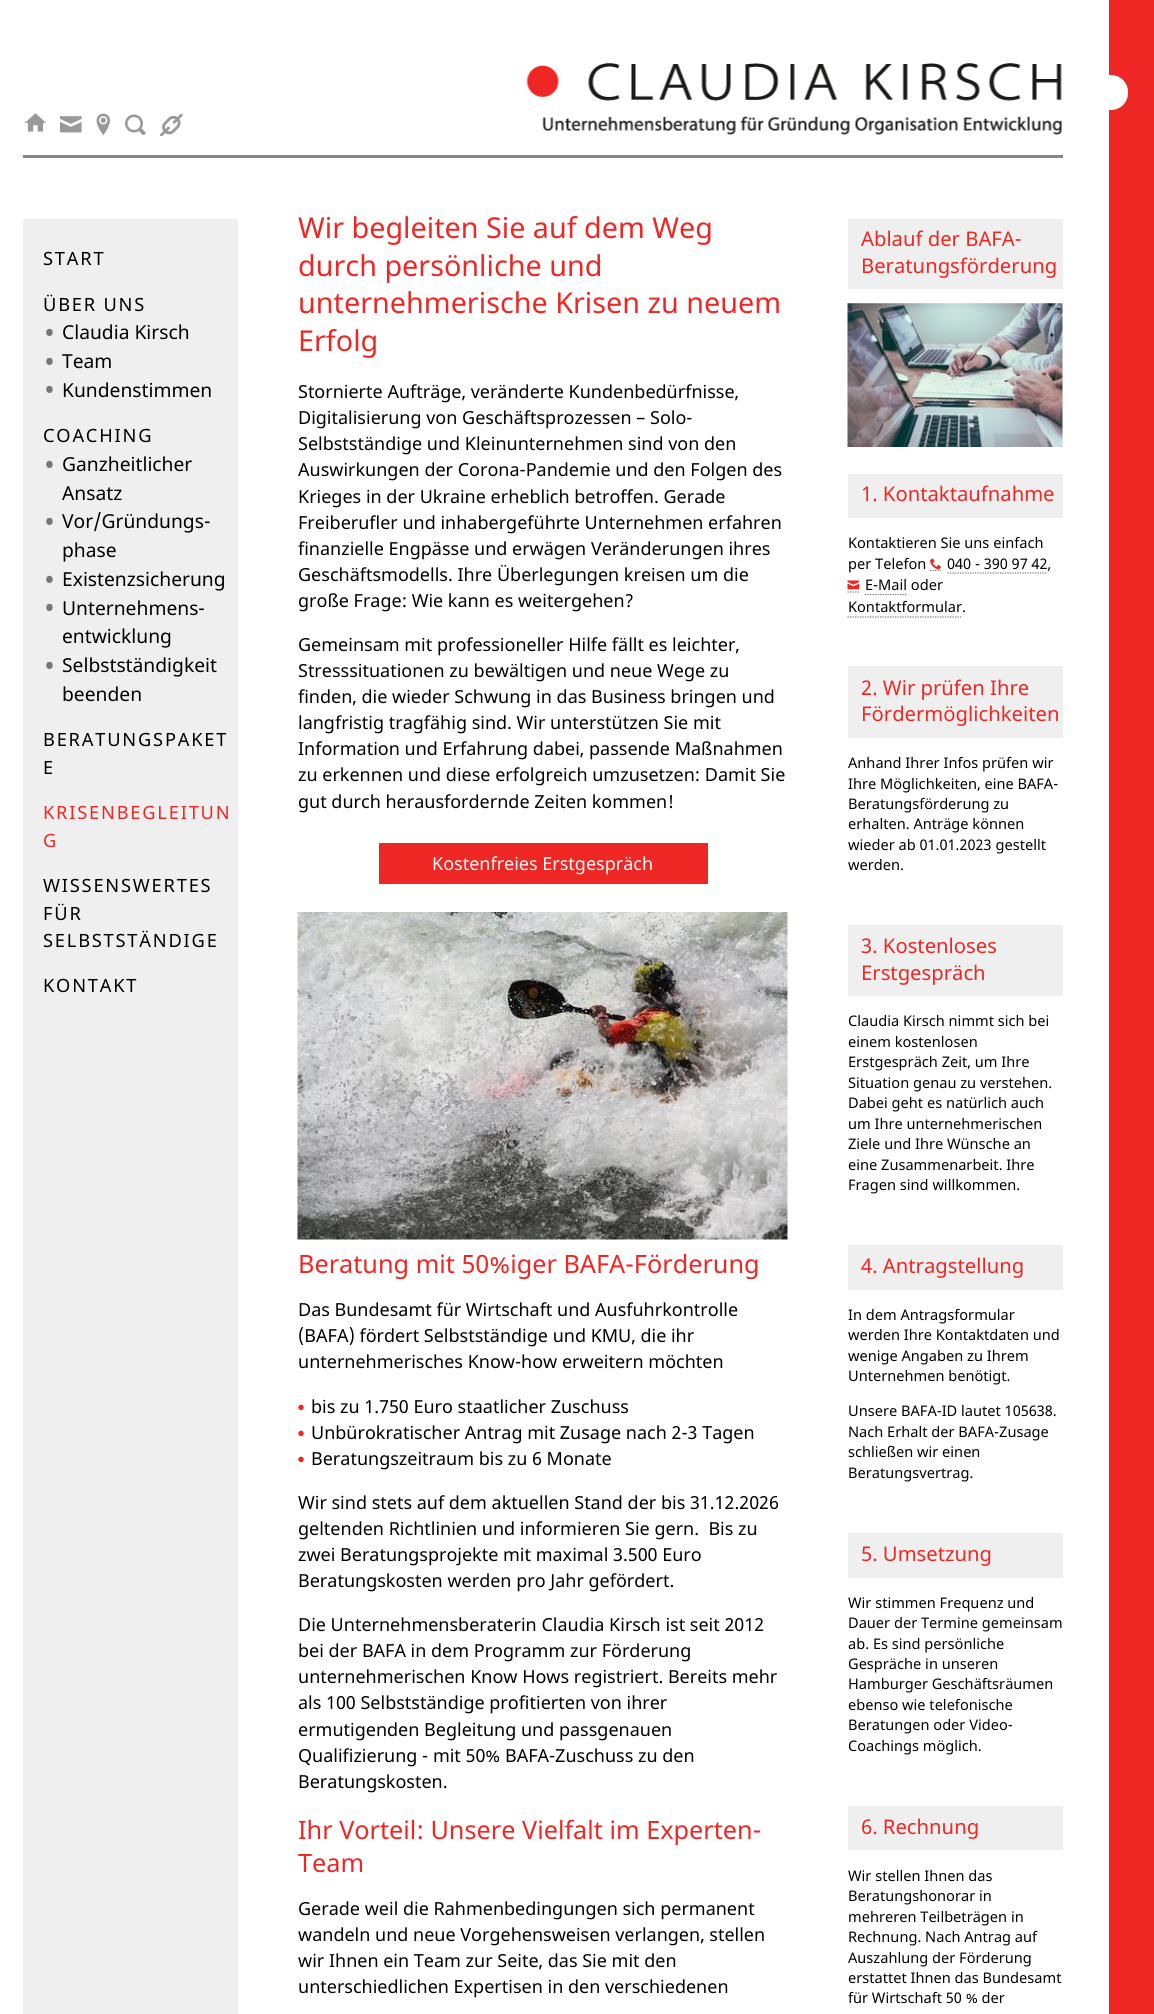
#include <cairo/cairo.h>
#include <math.h>
#include <stddef.h>

typedef struct { double x, y; const char *s; } line_t;
typedef struct { double x, y, w, h; unsigned color; } box_t;
static cairo_t *cr;

static void rgb(unsigned color)
{
	cairo_set_source_rgb(cr, (color >> 16) / 255.0, (color >> 8 & 255) / 255.0, (color & 255) / 255.0);
}

static void tracked(double x, double y, const char *s, double letter, double word)
{
	cairo_move_to(cr, x, y);
	while (*s) {
		char ch[5] = {0};
		int n = 0;
		do ch[n++] = *s++; while ((*s & 0xC0) == 0x80);
		cairo_show_text(cr, ch);
		cairo_rel_move_to(cr, letter + word * (*ch == ' '), 0);
	}
}

static void rrect(double x, double y, double w, double h, double r)
{
	cairo_new_sub_path(cr);
	cairo_arc(cr, x + w - r, y + h - r, r, 0, M_PI / 2);
	cairo_arc(cr, x + r, y + h - r, r, M_PI / 2, M_PI);
	cairo_arc(cr, x + r, y + r, r, M_PI, 1.5 * M_PI);
	cairo_arc(cr, x + w - r, y + r, r, 1.5 * M_PI, 2 * M_PI);
	cairo_close_path(cr);
}

static void image(const char *path, double x, double y, double w, double h)
{
	cairo_surface_t *image = cairo_image_surface_create_from_png(path);
	cairo_save(cr);
	cairo_set_source_surface(cr, image, x, y);
	cairo_rectangle(cr, x, y, w, h);
	cairo_fill(cr);
	cairo_restore(cr);
	cairo_surface_destroy(image);
}

int main(void) {
	cairo_surface_t *surface = cairo_image_surface_create(CAIRO_FORMAT_RGB24, 1154, 2014);
	cr = cairo_create(surface);
	cairo_font_options_t *options = cairo_font_options_create();
	cairo_font_options_set_hint_metrics(options, CAIRO_HINT_METRICS_OFF);
	cairo_font_options_set_hint_style(options, CAIRO_HINT_STYLE_NONE);
	cairo_set_font_options(cr, options);
	cairo_set_miter_limit(cr, 4);
	rgb(0xffffff);
	cairo_paint(cr);
	rgb(0x888888);
	cairo_rectangle(cr, 23, 155, 1040, 3);
	cairo_fill(cr);
	image("img/1.png", 526, 63, 537, 72);
	rgb(0xee2724);
	cairo_rectangle(cr, 1109, 0, 45, 2014);
	cairo_fill(cr);
	rgb(0xffffff);
	rrect(1094, 75, 34, 35, 17);
	cairo_fill(cr);
	image("img/2.png", 24, 113, 22, 19);
	image("img/3.png", 60, 116, 22, 17);
	image("img/4.png", 96, 113, 14, 22);
	image("img/5.png", 125, 114, 21, 21);
	image("img/6.png", 160, 113, 23, 23);
	rgb(0xefefef);
	cairo_rectangle(cr, 23, 219, 215, 1795);
	cairo_fill(cr);
	rgb(0xee2724);
	cairo_rectangle(cr, 379, 843, 329, 41);
	cairo_fill(cr);
	image("img/7.png", 297, 912, 491, 328);
	rgb(0xefefef);
	cairo_rectangle(cr, 848, 219, 215, 70);
	cairo_fill(cr);
	image("img/8.png", 847, 303, 216, 144);
	cairo_rectangle(cr, 848, 474, 215, 44);
	cairo_fill(cr);
	cairo_new_path(cr);
	cairo_move_to(cr, 930, 570.5);
	cairo_line_to(cr, 941, 570.5);
	rgb(0x777777);
	cairo_set_line_width(cr, 1.2);
	cairo_set_dash(cr, (double[]){1.25, 1.25}, 2, 0);
	cairo_stroke(cr);
	image("img/9.png", 930, 558, 11, 12);
	cairo_new_path(cr);
	cairo_move_to(cr, 947.5, 573);
	cairo_line_to(cr, 1047.5, 573);
	cairo_stroke(cr);
	image("img/10.png", 847, 580, 13, 10);
	cairo_new_path(cr);
	cairo_move_to(cr, 847.5, 592);
	cairo_line_to(cr, 859, 592);
	cairo_move_to(cr, 865, 594.5);
	cairo_line_to(cr, 907.5, 594.5);
	cairo_stroke(cr);
	cairo_new_path(cr);
	cairo_move_to(cr, 847.5, 617);
	cairo_line_to(cr, 961, 617);
	cairo_stroke(cr);
	{
		static const box_t items[] = {
			{848, 666, 215, 72, 0xefefef},
			{848, 925, 215, 71, 0xefefef},
			{848, 1245, 215, 45, 0xefefef},
			{848, 1533, 215, 45, 0xefefef},
			{848, 1806, 215, 44, 0xefefef},
		};
		for (size_t i = 0; i < sizeof items / sizeof *items; i++) {
			rgb(items[i].color);
			cairo_rectangle(cr, items[i].x, items[i].y, items[i].w, items[i].h);
			cairo_fill(cr);
		}
	}
	cairo_select_font_face(cr, "Noto Sans", CAIRO_FONT_SLANT_NORMAL, CAIRO_FONT_WEIGHT_NORMAL);
	cairo_set_font_size(cr, 28.75);
	rgb(0xee2724);
	{
		static const line_t items[] = {
			{298, 238, "Wir begleiten Sie auf dem Weg"},
			{298, 276, "durch persönliche und"},
			{298, 313, "unternehmerische Krisen zu neuem"},
			{298, 351, "Erfolg"},
		};
		for (size_t i = 0; i < sizeof items / sizeof *items; i++) {
			cairo_move_to(cr, items[i].x, items[i].y);
			cairo_show_text(cr, items[i].s);
		}
	}
	cairo_set_font_size(cr, 18);
	rgb(0x000000);
	{
		static const line_t items[] = {
			{298, 398, "Stornierte Aufträge, veränderte Kundenbedürfnisse,"},
			{298, 424, "Digitalisierung von Geschäftsprozessen – Solo-"},
			{298, 450, "Selbstständige und Kleinunternehmen sind von den"},
			{298, 476, "Auswirkungen der Corona-Pandemie und den Folgen des"},
			{298, 503, "Krieges in der Ukraine erheblich betroffen. Gerade"},
			{298, 529, "Freiberufler und inhabergeführte Unternehmen erfahren"},
			{298, 555, "finanzielle Engpässe und erwägen Veränderungen ihres"},
			{298, 581, "Geschäftsmodells. Ihre Überlegungen kreisen um die"},
			{298, 607, "große Frage: Wie kann es weitergehen?"},
			{298, 651, "Gemeinsam mit professioneller Hilfe fällt es leichter,"},
			{298, 677, "Stresssituationen zu bewältigen und neue Wege zu"},
			{298, 703, "finden, die wieder Schwung in das Business bringen und"},
			{298, 729, "langfristig tragfähig sind. Wir unterstützen Sie mit"},
			{298, 755, "Information und Erfahrung dabei, passende Maßnahmen"},
			{298, 781, "zu erkennen und diese erfolgreich umzusetzen: Damit Sie"},
			{298, 808, "gut durch herausfordernde Zeiten kommen!"},
		};
		for (size_t i = 0; i < sizeof items / sizeof *items; i++) {
			cairo_move_to(cr, items[i].x, items[i].y);
			cairo_show_text(cr, items[i].s);
		}
	}
	rgb(0xffffff);
	cairo_move_to(cr, 432, 870);
	cairo_show_text(cr, "Kostenfreies Erstgespräch");
	cairo_set_font_size(cr, 25.25);
	rgb(0xee2724);
	cairo_move_to(cr, 298, 1273);
	cairo_show_text(cr, "Beratung mit 50%iger BAFA-Förderung");
	cairo_set_font_size(cr, 18);
	rgb(0x000000);
	{
		static const line_t items[] = {
			{298, 1316, "Das Bundesamt für Wirtschaft und Ausfuhrkontrolle"},
			{298, 1342, "(BAFA) fördert Selbstständige und KMU, die ihr"},
			{298, 1368, "unternehmerisches Know-how erweitern möchten"},
		};
		for (size_t i = 0; i < sizeof items / sizeof *items; i++) {
			cairo_move_to(cr, items[i].x, items[i].y);
			cairo_show_text(cr, items[i].s);
		}
	}
	cairo_select_font_face(cr, "Liberation Serif", CAIRO_FONT_SLANT_NORMAL, CAIRO_FONT_WEIGHT_NORMAL);
	cairo_set_font_size(cr, 23);
	rgb(0xee2724);
	cairo_move_to(cr, 297, 1415);
	cairo_show_text(cr, "•");
	cairo_select_font_face(cr, "Noto Sans", CAIRO_FONT_SLANT_NORMAL, CAIRO_FONT_WEIGHT_NORMAL);
	cairo_set_font_size(cr, 18);
	rgb(0x000000);
	cairo_move_to(cr, 311, 1413);
	cairo_show_text(cr, "bis zu 1.750 Euro staatlicher Zuschuss");
	cairo_select_font_face(cr, "Liberation Serif", CAIRO_FONT_SLANT_NORMAL, CAIRO_FONT_WEIGHT_NORMAL);
	cairo_set_font_size(cr, 23);
	rgb(0xee2724);
	cairo_move_to(cr, 297, 1441);
	cairo_show_text(cr, "•");
	cairo_select_font_face(cr, "Noto Sans", CAIRO_FONT_SLANT_NORMAL, CAIRO_FONT_WEIGHT_NORMAL);
	cairo_set_font_size(cr, 18);
	rgb(0x000000);
	cairo_move_to(cr, 311, 1439);
	cairo_show_text(cr, "Unbürokratischer Antrag mit Zusage nach 2-3 Tagen");
	cairo_select_font_face(cr, "Liberation Serif", CAIRO_FONT_SLANT_NORMAL, CAIRO_FONT_WEIGHT_NORMAL);
	cairo_set_font_size(cr, 23);
	rgb(0xee2724);
	cairo_move_to(cr, 297, 1467);
	cairo_show_text(cr, "•");
	cairo_select_font_face(cr, "Noto Sans", CAIRO_FONT_SLANT_NORMAL, CAIRO_FONT_WEIGHT_NORMAL);
	cairo_set_font_size(cr, 18);
	rgb(0x000000);
	{
		static const line_t items[] = {
			{311, 1465, "Beratungszeitraum bis zu 6 Monate"},
			{298, 1509, "Wir sind stets auf dem aktuellen Stand der bis 31.12.2026"},
			{298, 1535, "geltenden Richtlinien und informieren Sie gern.  Bis zu"},
			{298, 1561, "zwei Beratungsprojekte mit maximal 3.500 Euro"},
			{298, 1587, "Beratungskosten werden pro Jahr gefördert."},
			{298, 1631, "Die Unternehmensberaterin Claudia Kirsch ist seit 2012"},
			{298, 1657, "bei der BAFA in dem Programm zur Förderung"},
			{298, 1683, "unternehmerischen Know Hows registriert. Bereits mehr"},
			{298, 1709, "als 100 Selbstständige profitierten von ihrer"},
			{298, 1736, "ermutigenden Begleitung und passgenauen"},
			{298, 1762, "Qualifizierung - mit 50% BAFA-Zuschuss zu den"},
			{298, 1788, "Beratungskosten."},
		};
		for (size_t i = 0; i < sizeof items / sizeof *items; i++) {
			cairo_move_to(cr, items[i].x, items[i].y);
			cairo_show_text(cr, items[i].s);
		}
	}
	cairo_set_font_size(cr, 25.25);
	rgb(0xee2724);
	cairo_move_to(cr, 298, 1839);
	cairo_show_text(cr, "Ihr Vorteil: Unsere Vielfalt im Experten-");
	cairo_move_to(cr, 298, 1872);
	cairo_show_text(cr, "Team");
	cairo_set_font_size(cr, 18);
	rgb(0x000000);
	{
		static const line_t items[] = {
			{298, 1915, "Gerade weil die Rahmenbedingungen sich permanent"},
			{298, 1941, "wandeln und neue Vorgehensweisen verlangen, stellen"},
			{298, 1967, "wir Ihnen ein Team zur Seite, das Sie mit den"},
			{298, 1993, "unterschiedlichen Expertisen in den verschiedenen"},
		};
		for (size_t i = 0; i < sizeof items / sizeof *items; i++) {
			cairo_move_to(cr, items[i].x, items[i].y);
			cairo_show_text(cr, items[i].s);
		}
	}
	cairo_set_font_size(cr, 20.25);
	rgb(0xee2724);
	{
		static const line_t items[] = {
			{861, 246, "Ablauf der BAFA-"},
			{861, 273, "Beratungsförderung"},
			{861, 501, "1. Kontaktaufnahme"},
		};
		for (size_t i = 0; i < sizeof items / sizeof *items; i++) {
			cairo_move_to(cr, items[i].x, items[i].y);
			cairo_show_text(cr, items[i].s);
		}
	}
	cairo_set_font_size(cr, 14.6);
	rgb(0x000000);
	{
		static const line_t items[] = {
			{848, 548, "Kontaktieren Sie uns einfach"},
			{848, 569, "per Telefon"},
			{947, 569, "040 - 390 97 42,"},
			{865, 590, "E-Mail oder"},
			{848, 612, "Kontaktformular."},
		};
		for (size_t i = 0; i < sizeof items / sizeof *items; i++) {
			cairo_move_to(cr, items[i].x, items[i].y);
			cairo_show_text(cr, items[i].s);
		}
	}
	cairo_set_font_size(cr, 20.25);
	rgb(0xee2724);
	cairo_move_to(cr, 861, 695);
	cairo_show_text(cr, "2. Wir prüfen Ihre");
	cairo_move_to(cr, 861, 721);
	cairo_show_text(cr, "Fördermöglichkeiten");
	cairo_set_font_size(cr, 14.6);
	rgb(0x000000);
	{
		static const line_t items[] = {
			{848, 768, "Anhand Ihrer Infos prüfen wir"},
			{848, 789, "Ihre Möglichkeiten, eine BAFA-"},
			{848, 809, "Beratungsförderung zu"},
			{848, 829, "erhalten. Anträge können"},
			{848, 850, "wieder ab 01.01.2023 gestellt"},
			{848, 870, "werden."},
		};
		for (size_t i = 0; i < sizeof items / sizeof *items; i++) {
			cairo_move_to(cr, items[i].x, items[i].y);
			cairo_show_text(cr, items[i].s);
		}
	}
	cairo_set_font_size(cr, 20.25);
	rgb(0xee2724);
	cairo_move_to(cr, 861, 953);
	cairo_show_text(cr, "3. Kostenloses");
	cairo_move_to(cr, 861, 980);
	cairo_show_text(cr, "Erstgespräch");
	cairo_set_font_size(cr, 14.6);
	rgb(0x000000);
	{
		static const line_t items[] = {
			{848, 1026, "Claudia Kirsch nimmt sich bei"},
			{848, 1047, "einem kostenlosen"},
			{848, 1067, "Erstgespräch Zeit, um Ihre"},
			{848, 1088, "Situation genau zu verstehen."},
			{848, 1108, "Dabei geht es natürlich auch"},
			{848, 1129, "um Ihre unternehmerischen"},
			{848, 1149, "Ziele und Ihre Wünsche an"},
			{848, 1170, "eine Zusammenarbeit. Ihre"},
			{848, 1190, "Fragen sind willkommen."},
		};
		for (size_t i = 0; i < sizeof items / sizeof *items; i++) {
			cairo_move_to(cr, items[i].x, items[i].y);
			cairo_show_text(cr, items[i].s);
		}
	}
	cairo_set_font_size(cr, 20.25);
	rgb(0xee2724);
	cairo_move_to(cr, 861, 1273);
	cairo_show_text(cr, "4. Antragstellung");
	cairo_set_font_size(cr, 14.6);
	rgb(0x000000);
	{
		static const line_t items[] = {
			{848, 1320, "In dem Antragsformular"},
			{848, 1340, "werden Ihre Kontaktdaten und"},
			{848, 1361, "wenige Angaben zu Ihrem"},
			{848, 1381, "Unternehmen benötigt."},
			{848, 1416, "Unsere BAFA-ID lautet 105638."},
			{848, 1437, "Nach Erhalt der BAFA-Zusage"},
			{848, 1457, "schließen wir einen"},
			{848, 1478, "Beratungsvertrag."},
		};
		for (size_t i = 0; i < sizeof items / sizeof *items; i++) {
			cairo_move_to(cr, items[i].x, items[i].y);
			cairo_show_text(cr, items[i].s);
		}
	}
	cairo_set_font_size(cr, 20.25);
	rgb(0xee2724);
	cairo_move_to(cr, 861, 1561);
	cairo_show_text(cr, "5. Umsetzung");
	cairo_set_font_size(cr, 14.6);
	rgb(0x000000);
	{
		static const line_t items[] = {
			{848, 1608, "Wir stimmen Frequenz und"},
			{848, 1628, "Dauer der Termine gemeinsam"},
			{848, 1649, "ab. Es sind persönliche"},
			{848, 1669, "Gespräche in unseren"},
			{848, 1689, "Hamburger Geschäftsräumen"},
			{848, 1710, "ebenso wie telefonische"},
			{848, 1730, "Beratungen oder Video-"},
			{848, 1751, "Coachings möglich."},
		};
		for (size_t i = 0; i < sizeof items / sizeof *items; i++) {
			cairo_move_to(cr, items[i].x, items[i].y);
			cairo_show_text(cr, items[i].s);
		}
	}
	cairo_set_font_size(cr, 20.25);
	rgb(0xee2724);
	cairo_move_to(cr, 861, 1834);
	cairo_show_text(cr, "6. Rechnung");
	cairo_set_font_size(cr, 14.6);
	rgb(0x000000);
	{
		static const line_t items[] = {
			{848, 1881, "Wir stellen Ihnen das"},
			{848, 1901, "Beratungshonorar in"},
			{848, 1922, "mehreren Teilbeträgen in"},
			{848, 1942, "Rechnung. Nach Antrag auf"},
			{848, 1963, "Auszahlung der Förderung"},
			{848, 1983, "erstattet Ihnen das Bundesamt"},
			{848, 2003, "für Wirtschaft 50 % der"},
		};
		for (size_t i = 0; i < sizeof items / sizeof *items; i++) {
			cairo_move_to(cr, items[i].x, items[i].y);
			cairo_show_text(cr, items[i].s);
		}
	}
	cairo_set_font_size(cr, 18.25);
	tracked(43, 265, "START", 1.8, 0);
	tracked(43, 311, "ÜBER UNS", 1.8, 0);
	cairo_set_font_size(cr, 29);
	rgb(0x777777);
	cairo_move_to(cr, 44, 343);
	cairo_show_text(cr, "•");
	cairo_set_font_size(cr, 19.25);
	rgb(0x000000);
	cairo_move_to(cr, 62, 339);
	cairo_show_text(cr, "Claudia Kirsch");
	cairo_set_font_size(cr, 29);
	rgb(0x777777);
	cairo_move_to(cr, 44, 372);
	cairo_show_text(cr, "•");
	cairo_set_font_size(cr, 19.25);
	rgb(0x000000);
	cairo_move_to(cr, 62, 368);
	cairo_show_text(cr, "Team");
	cairo_set_font_size(cr, 29);
	rgb(0x777777);
	cairo_move_to(cr, 44, 400);
	cairo_show_text(cr, "•");
	cairo_set_font_size(cr, 19.25);
	rgb(0x000000);
	cairo_move_to(cr, 62, 397);
	cairo_show_text(cr, "Kundenstimmen");
	cairo_set_font_size(cr, 18.25);
	tracked(43, 442, "COACHING", 1.8, 0);
	cairo_set_font_size(cr, 29);
	rgb(0x777777);
	cairo_move_to(cr, 44, 475);
	cairo_show_text(cr, "•");
	cairo_set_font_size(cr, 19.25);
	rgb(0x000000);
	cairo_move_to(cr, 62, 471);
	cairo_show_text(cr, "Ganzheitlicher");
	cairo_move_to(cr, 62, 500);
	cairo_show_text(cr, "Ansatz");
	cairo_set_font_size(cr, 29);
	rgb(0x777777);
	cairo_move_to(cr, 44, 532);
	cairo_show_text(cr, "•");
	cairo_set_font_size(cr, 19.25);
	rgb(0x000000);
	cairo_move_to(cr, 62, 528);
	cairo_show_text(cr, "Vor/Gründungs-");
	cairo_move_to(cr, 62, 557);
	cairo_show_text(cr, "phase");
	cairo_set_font_size(cr, 29);
	rgb(0x777777);
	cairo_move_to(cr, 44, 590);
	cairo_show_text(cr, "•");
	cairo_set_font_size(cr, 19.25);
	rgb(0x000000);
	cairo_move_to(cr, 62, 586);
	cairo_show_text(cr, "Existenzsicherung");
	cairo_set_font_size(cr, 29);
	rgb(0x777777);
	cairo_move_to(cr, 44, 618);
	cairo_show_text(cr, "•");
	cairo_set_font_size(cr, 19.25);
	rgb(0x000000);
	cairo_move_to(cr, 62, 615);
	cairo_show_text(cr, "Unternehmens-");
	cairo_move_to(cr, 62, 643);
	cairo_show_text(cr, "entwicklung");
	cairo_set_font_size(cr, 29);
	rgb(0x777777);
	cairo_move_to(cr, 44, 676);
	cairo_show_text(cr, "•");
	cairo_set_font_size(cr, 19.25);
	rgb(0x000000);
	cairo_move_to(cr, 62, 672);
	cairo_show_text(cr, "Selbstständigkeit");
	cairo_move_to(cr, 62, 701);
	cairo_show_text(cr, "beenden");
	cairo_set_font_size(cr, 18.25);
	tracked(43, 746, "BERATUNGSPAKET", 1.8, 0);
	tracked(43, 774, "E", 1.8, 0);
	rgb(0xee2724);
	tracked(43, 819, "KRISENBEGLEITUN", 1.8, 0);
	tracked(43, 847, "G", 1.8, 0);
	rgb(0x000000);
	{
		static const line_t items[] = {
			{43, 892, "WISSENSWERTES"},
			{43, 920, "FÜR"},
			{43, 947, "SELBSTSTÄNDIGE"},
			{43, 992, "KONTAKT"},
		};
		for (size_t i = 0; i < sizeof items / sizeof *items; i++) {
			tracked(items[i].x, items[i].y, items[i].s, 1.8, 0);
		}
	}
	cairo_surface_write_to_png(surface, "page.png");
	cairo_font_options_destroy(options);
	cairo_destroy(cr);
	cairo_surface_destroy(surface);
	return 0;
}
